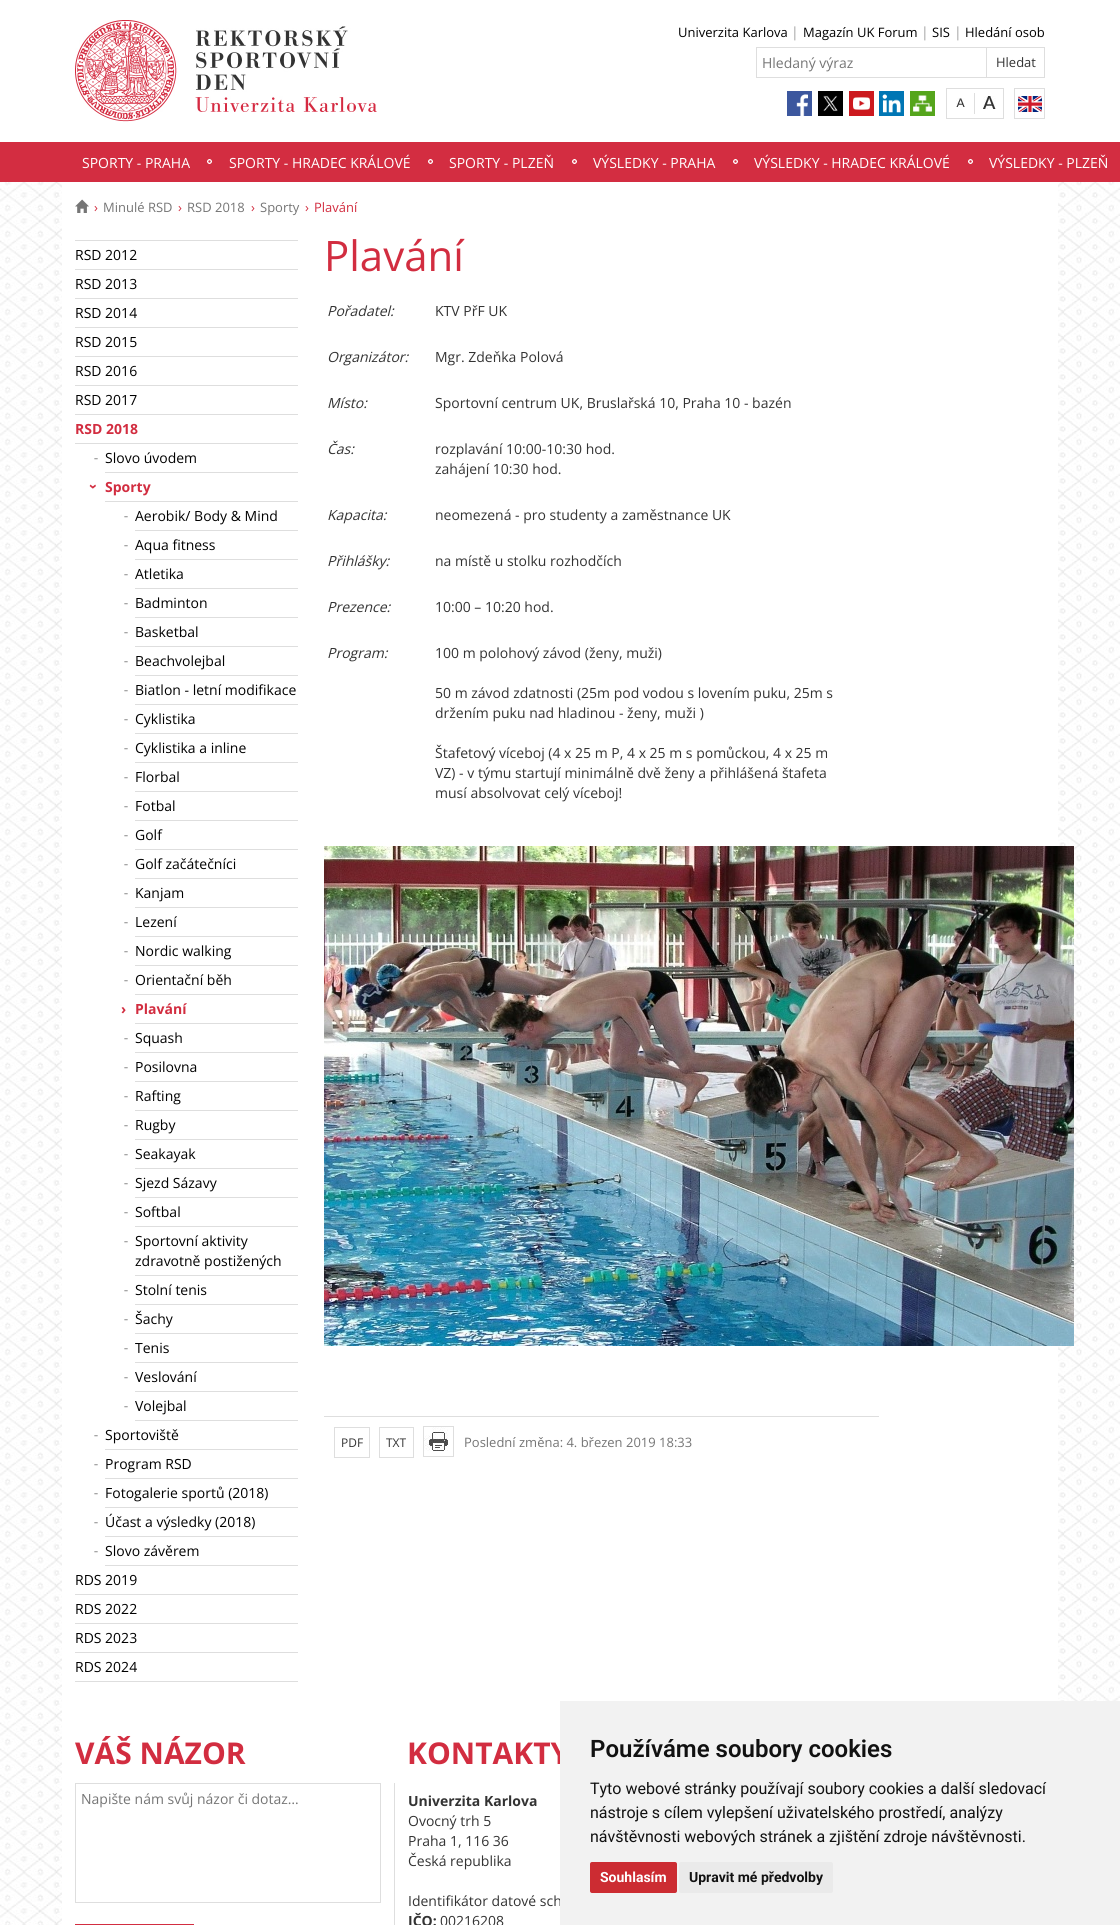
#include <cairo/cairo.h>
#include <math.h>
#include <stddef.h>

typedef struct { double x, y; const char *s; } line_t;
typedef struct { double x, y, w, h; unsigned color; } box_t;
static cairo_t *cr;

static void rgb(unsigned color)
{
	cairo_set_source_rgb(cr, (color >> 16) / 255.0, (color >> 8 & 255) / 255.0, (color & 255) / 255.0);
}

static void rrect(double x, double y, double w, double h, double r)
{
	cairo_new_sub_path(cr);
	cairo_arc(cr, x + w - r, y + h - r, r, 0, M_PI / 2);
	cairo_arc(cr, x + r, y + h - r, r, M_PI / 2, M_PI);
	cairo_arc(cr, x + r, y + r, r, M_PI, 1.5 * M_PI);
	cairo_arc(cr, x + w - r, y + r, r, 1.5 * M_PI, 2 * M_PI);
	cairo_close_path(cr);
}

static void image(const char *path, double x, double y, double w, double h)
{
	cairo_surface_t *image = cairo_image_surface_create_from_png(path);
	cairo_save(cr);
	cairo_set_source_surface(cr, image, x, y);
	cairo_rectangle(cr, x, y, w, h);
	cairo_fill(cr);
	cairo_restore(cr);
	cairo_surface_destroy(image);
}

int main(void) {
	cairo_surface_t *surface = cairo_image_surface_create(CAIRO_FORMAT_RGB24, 1120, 1925);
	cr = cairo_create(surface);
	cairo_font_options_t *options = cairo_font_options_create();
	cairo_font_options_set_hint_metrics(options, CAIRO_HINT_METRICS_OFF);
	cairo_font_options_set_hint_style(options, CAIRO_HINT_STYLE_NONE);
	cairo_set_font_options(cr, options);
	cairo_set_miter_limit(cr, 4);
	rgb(0xffffff);
	cairo_paint(cr);
	image("img/1.png", 0, 182, 1120, 1743);
	image("img/2.png", 75, 20, 302, 102);
	cairo_rectangle(cr, 756.5, 47.5, 288, 30);
	rgb(0xdedede);
	cairo_set_line_width(cr, 1);
	cairo_stroke(cr);
	cairo_new_path(cr);
	cairo_move_to(cr, 986, 78);
	cairo_line_to(cr, 986, 47);
	cairo_line_to(cr, 987, 48);
	cairo_line_to(cr, 987, 77);
	cairo_close_path(cr);
	cairo_fill(cr);
	image("img/3.png", 787, 91, 25, 25);
	image("img/4.png", 818, 91, 25, 25);
	image("img/5.png", 849, 91, 25, 25);
	image("img/6.png", 879, 91, 25, 25);
	image("img/7.png", 910, 91, 25, 25);
	cairo_rectangle(cr, 946.5, 88.5, 57, 30);
	cairo_stroke(cr);
	image("img/8.png", 956, 98, 9, 9);
	cairo_rectangle(cr, 974, 93, 1, 21);
	cairo_fill(cr);
	image("img/9.png", 983, 96, 13, 13);
	image("img/10.png", 1018, 96, 24, 16);
	cairo_rectangle(cr, 1014.5, 88.5, 30, 30);
	cairo_stroke(cr);
	rgb(0xd32d41);
	cairo_rectangle(cr, 0, 142, 1120, 40);
	cairo_fill(cr);
	image("img/11.png", 207, 159, 5, 5);
	image("img/11.png", 428, 159, 5, 5);
	image("img/11.png", 572, 159, 5, 5);
	image("img/11.png", 733, 159, 5, 5);
	image("img/11.png", 968, 159, 5, 5);
	rgb(0xffffff);
	cairo_rectangle(cr, 62, 182, 996, 1743);
	cairo_fill(cr);
	image("img/12.png", 75, 199, 14, 14);
	{
		static const box_t items[] = {
			{75, 240, 223, 1, 0xdedede},
			{75, 269, 223, 1, 0xdedede},
			{75, 298, 223, 1, 0xdedede},
			{75, 327, 223, 1, 0xdedede},
			{75, 356, 223, 1, 0xdedede},
			{75, 385, 223, 1, 0xdedede},
			{75, 414, 223, 1, 0xdedede},
			{75, 443, 223, 1, 0xdedede},
			{105, 472, 193, 1, 0xdedede},
			{105, 501, 193, 1, 0xdedede},
			{135, 530, 163, 1, 0xdedede},
			{135, 559, 163, 1, 0xdedede},
			{135, 588, 163, 1, 0xdedede},
			{135, 617, 163, 1, 0xdedede},
			{135, 646, 163, 1, 0xdedede},
			{135, 675, 163, 1, 0xdedede},
			{135, 704, 163, 1, 0xdedede},
			{135, 733, 163, 1, 0xdedede},
			{135, 762, 163, 1, 0xdedede},
			{135, 791, 163, 1, 0xdedede},
			{135, 820, 163, 1, 0xdedede},
			{135, 849, 163, 1, 0xdedede},
			{135, 878, 163, 1, 0xdedede},
			{135, 907, 163, 1, 0xdedede},
			{135, 936, 163, 1, 0xdedede},
			{135, 965, 163, 1, 0xdedede},
			{135, 994, 163, 1, 0xdedede},
			{135, 1023, 163, 1, 0xdedede},
			{135, 1052, 163, 1, 0xdedede},
			{135, 1081, 163, 1, 0xdedede},
			{135, 1110, 163, 1, 0xdedede},
			{135, 1139, 163, 1, 0xdedede},
			{135, 1168, 163, 1, 0xdedede},
			{135, 1197, 163, 1, 0xdedede},
			{135, 1226, 163, 1, 0xdedede},
			{135, 1275, 163, 1, 0xdedede},
			{135, 1304, 163, 1, 0xdedede},
			{135, 1333, 163, 1, 0xdedede},
			{135, 1362, 163, 1, 0xdedede},
			{135, 1391, 163, 1, 0xdedede},
			{135, 1420, 163, 1, 0xdedede},
			{105, 1449, 193, 1, 0xdedede},
			{105, 1478, 193, 1, 0xdedede},
			{105, 1507, 193, 1, 0xdedede},
			{105, 1536, 193, 1, 0xdedede},
			{105, 1565, 193, 1, 0xdedede},
			{75, 1594, 223, 1, 0xdedede},
			{75, 1623, 223, 1, 0xdedede},
			{75, 1652, 223, 1, 0xdedede},
			{75, 1681, 223, 1, 0xdedede},
			{324, 1416, 555, 1, 0xdedede},
		};
		for (size_t i = 0; i < sizeof items / sizeof *items; i++) {
			rgb(items[i].color);
			cairo_rectangle(cr, items[i].x, items[i].y, items[i].w, items[i].h);
			cairo_fill(cr);
		}
	}
	image("img/13.png", 324, 846, 750, 500);
	cairo_rectangle(cr, 334.5, 1427.5, 35, 30);
	cairo_stroke(cr);
	cairo_rectangle(cr, 379.5, 1427.5, 34, 30);
	cairo_stroke(cr);
	cairo_rectangle(cr, 423.5, 1426.5, 30, 30);
	cairo_stroke(cr);
	image("img/14.png", 424, 1427, 24, 24);
	cairo_rectangle(cr, 75.5, 1783.5, 305, 119);
	cairo_stroke(cr);
	rgb(0xd32d41);
	cairo_rectangle(cr, 75, 1924, 119, 1);
	cairo_fill(cr);
	rgb(0xdedede);
	cairo_rectangle(cr, 394, 1783, 1, 142);
	cairo_fill(cr);
	cairo_select_font_face(cr, "Open Sans", CAIRO_FONT_SLANT_NORMAL, CAIRO_FONT_WEIGHT_NORMAL);
	cairo_set_font_size(cr, 13);
	rgb(0x000000);
	cairo_move_to(cr, 678, 37);
	cairo_show_text(cr, "Univerzita Karlova");
	cairo_set_font_size(cr, 14);
	rgb(0xa0a0a0);
	cairo_move_to(cr, 791, 37);
	cairo_show_text(cr, "|");
	cairo_set_font_size(cr, 13);
	rgb(0x000000);
	cairo_move_to(cr, 803, 37);
	cairo_show_text(cr, "Magazín UK Forum");
	cairo_set_font_size(cr, 14);
	rgb(0xa0a0a0);
	cairo_move_to(cr, 921, 37);
	cairo_show_text(cr, "|");
	cairo_set_font_size(cr, 13);
	rgb(0x000000);
	cairo_move_to(cr, 932, 37);
	cairo_show_text(cr, "SIS");
	cairo_set_font_size(cr, 14);
	rgb(0xa0a0a0);
	cairo_move_to(cr, 954, 37);
	cairo_show_text(cr, "|");
	cairo_set_font_size(cr, 13);
	rgb(0x000000);
	cairo_move_to(cr, 965, 37);
	cairo_show_text(cr, "Hledání osob");
	cairo_set_font_size(cr, 14);
	rgb(0x757575);
	cairo_move_to(cr, 762, 68);
	cairo_show_text(cr, "Hledaný výraz");
	cairo_set_font_size(cr, 13);
	rgb(0x333333);
	cairo_move_to(cr, 996, 67);
	cairo_show_text(cr, "Hledat");
	cairo_set_font_size(cr, 14);
	rgb(0xffffff);
	{
		static const line_t items[] = {
			{82, 168, "SPORTY - PRAHA"},
			{229, 168, "SPORTY - HRADEC KRÁLOVÉ"},
			{449, 168, "SPORTY - PLZEŇ"},
			{593, 168, "VÝSLEDKY - PRAHA"},
			{754, 168, "VÝSLEDKY - HRADEC KRÁLOVÉ"},
			{989, 168, "VÝSLEDKY - PLZEŇ"},
		};
		for (size_t i = 0; i < sizeof items / sizeof *items; i++) {
			cairo_move_to(cr, items[i].x, items[i].y);
			cairo_show_text(cr, items[i].s);
		}
	}
	cairo_set_font_size(cr, 13);
	rgb(0xd22d40);
	cairo_move_to(cr, 94, 212);
	cairo_show_text(cr, "›");
	rgb(0x757575);
	cairo_move_to(cr, 103, 212);
	cairo_show_text(cr, "Minulé RSD");
	rgb(0xd22d40);
	cairo_move_to(cr, 178, 212);
	cairo_show_text(cr, "›");
	rgb(0x757575);
	cairo_move_to(cr, 187, 212);
	cairo_show_text(cr, "RSD 2018");
	rgb(0xd22d40);
	cairo_move_to(cr, 251, 212);
	cairo_show_text(cr, "›");
	rgb(0x757575);
	cairo_move_to(cr, 260, 212);
	cairo_show_text(cr, "Sporty");
	rgb(0xd22d40);
	cairo_move_to(cr, 305, 212);
	cairo_show_text(cr, "›");
	cairo_move_to(cr, 314, 212);
	cairo_show_text(cr, "Plavání");
	cairo_set_font_size(cr, 14);
	rgb(0x000000);
	{
		static const line_t items[] = {
			{75, 260, "RSD 2012"},
			{75, 289, "RSD 2013"},
			{75, 318, "RSD 2014"},
			{75, 347, "RSD 2015"},
			{75, 376, "RSD 2016"},
			{75, 405, "RSD 2017"},
		};
		for (size_t i = 0; i < sizeof items / sizeof *items; i++) {
			cairo_move_to(cr, items[i].x, items[i].y);
			cairo_show_text(cr, items[i].s);
		}
	}
	cairo_select_font_face(cr, "Open Sans", CAIRO_FONT_SLANT_NORMAL, CAIRO_FONT_WEIGHT_BOLD);
	rgb(0xd22d40);
	cairo_move_to(cr, 75, 434);
	cairo_show_text(cr, "RSD 2018");
	cairo_select_font_face(cr, "Open Sans", CAIRO_FONT_SLANT_NORMAL, CAIRO_FONT_WEIGHT_NORMAL);
	cairo_set_font_size(cr, 8);
	rgb(0x333333);
	cairo_move_to(cr, 94, 461);
	cairo_show_text(cr, "–");
	cairo_set_font_size(cr, 14);
	rgb(0x000000);
	cairo_move_to(cr, 105, 463);
	cairo_show_text(cr, "Slovo úvodem");
	cairo_select_font_face(cr, "Open Sans", CAIRO_FONT_SLANT_NORMAL, CAIRO_FONT_WEIGHT_BOLD);
	rgb(0xd22d40);
	cairo_save(cr);
	cairo_translate(cr, 89, 484);
	cairo_rotate(cr, 90 * M_PI / 180);
	cairo_move_to(cr, 0, 0);
	cairo_show_text(cr, "›");
	cairo_restore(cr);
	cairo_move_to(cr, 105, 492);
	cairo_show_text(cr, "Sporty");
	cairo_select_font_face(cr, "Open Sans", CAIRO_FONT_SLANT_NORMAL, CAIRO_FONT_WEIGHT_NORMAL);
	cairo_set_font_size(cr, 8);
	rgb(0x333333);
	cairo_move_to(cr, 124, 519);
	cairo_show_text(cr, "–");
	cairo_set_font_size(cr, 14);
	rgb(0x000000);
	cairo_move_to(cr, 135, 521);
	cairo_show_text(cr, "Aerobik/ Body & Mind");
	cairo_set_font_size(cr, 8);
	rgb(0x333333);
	cairo_move_to(cr, 124, 548);
	cairo_show_text(cr, "–");
	cairo_set_font_size(cr, 14);
	rgb(0x000000);
	cairo_move_to(cr, 135, 550);
	cairo_show_text(cr, "Aqua fitness");
	cairo_set_font_size(cr, 8);
	rgb(0x333333);
	cairo_move_to(cr, 124, 577);
	cairo_show_text(cr, "–");
	cairo_set_font_size(cr, 14);
	rgb(0x000000);
	cairo_move_to(cr, 135, 579);
	cairo_show_text(cr, "Atletika");
	cairo_set_font_size(cr, 8);
	rgb(0x333333);
	cairo_move_to(cr, 124, 606);
	cairo_show_text(cr, "–");
	cairo_set_font_size(cr, 14);
	rgb(0x000000);
	cairo_move_to(cr, 135, 608);
	cairo_show_text(cr, "Badminton");
	cairo_set_font_size(cr, 8);
	rgb(0x333333);
	cairo_move_to(cr, 124, 635);
	cairo_show_text(cr, "–");
	cairo_set_font_size(cr, 14);
	rgb(0x000000);
	cairo_move_to(cr, 135, 637);
	cairo_show_text(cr, "Basketbal");
	cairo_set_font_size(cr, 8);
	rgb(0x333333);
	cairo_move_to(cr, 124, 664);
	cairo_show_text(cr, "–");
	cairo_set_font_size(cr, 14);
	rgb(0x000000);
	cairo_move_to(cr, 135, 666);
	cairo_show_text(cr, "Beachvolejbal");
	cairo_set_font_size(cr, 8);
	rgb(0x333333);
	cairo_move_to(cr, 124, 693);
	cairo_show_text(cr, "–");
	cairo_set_font_size(cr, 14);
	rgb(0x000000);
	cairo_move_to(cr, 135, 695);
	cairo_show_text(cr, "Biatlon - letní modifikace");
	cairo_set_font_size(cr, 8);
	rgb(0x333333);
	cairo_move_to(cr, 124, 722);
	cairo_show_text(cr, "–");
	cairo_set_font_size(cr, 14);
	rgb(0x000000);
	cairo_move_to(cr, 135, 724);
	cairo_show_text(cr, "Cyklistika");
	cairo_set_font_size(cr, 8);
	rgb(0x333333);
	cairo_move_to(cr, 124, 751);
	cairo_show_text(cr, "–");
	cairo_set_font_size(cr, 14);
	rgb(0x000000);
	cairo_move_to(cr, 135, 753);
	cairo_show_text(cr, "Cyklistika a inline");
	cairo_set_font_size(cr, 8);
	rgb(0x333333);
	cairo_move_to(cr, 124, 780);
	cairo_show_text(cr, "–");
	cairo_set_font_size(cr, 14);
	rgb(0x000000);
	cairo_move_to(cr, 135, 782);
	cairo_show_text(cr, "Florbal");
	cairo_set_font_size(cr, 8);
	rgb(0x333333);
	cairo_move_to(cr, 124, 809);
	cairo_show_text(cr, "–");
	cairo_set_font_size(cr, 14);
	rgb(0x000000);
	cairo_move_to(cr, 135, 811);
	cairo_show_text(cr, "Fotbal");
	cairo_set_font_size(cr, 8);
	rgb(0x333333);
	cairo_move_to(cr, 124, 838);
	cairo_show_text(cr, "–");
	cairo_set_font_size(cr, 14);
	rgb(0x000000);
	cairo_move_to(cr, 135, 840);
	cairo_show_text(cr, "Golf");
	cairo_set_font_size(cr, 8);
	rgb(0x333333);
	cairo_move_to(cr, 124, 867);
	cairo_show_text(cr, "–");
	cairo_set_font_size(cr, 14);
	rgb(0x000000);
	cairo_move_to(cr, 135, 869);
	cairo_show_text(cr, "Golf začátečníci");
	cairo_set_font_size(cr, 8);
	rgb(0x333333);
	cairo_move_to(cr, 124, 896);
	cairo_show_text(cr, "–");
	cairo_set_font_size(cr, 14);
	rgb(0x000000);
	cairo_move_to(cr, 135, 898);
	cairo_show_text(cr, "Kanjam");
	cairo_set_font_size(cr, 8);
	rgb(0x333333);
	cairo_move_to(cr, 124, 925);
	cairo_show_text(cr, "–");
	cairo_set_font_size(cr, 14);
	rgb(0x000000);
	cairo_move_to(cr, 135, 927);
	cairo_show_text(cr, "Lezení");
	cairo_set_font_size(cr, 8);
	rgb(0x333333);
	cairo_move_to(cr, 124, 954);
	cairo_show_text(cr, "–");
	cairo_set_font_size(cr, 14);
	rgb(0x000000);
	cairo_move_to(cr, 135, 956);
	cairo_show_text(cr, "Nordic walking");
	cairo_set_font_size(cr, 8);
	rgb(0x333333);
	cairo_move_to(cr, 124, 983);
	cairo_show_text(cr, "–");
	cairo_set_font_size(cr, 14);
	rgb(0x000000);
	cairo_move_to(cr, 135, 985);
	cairo_show_text(cr, "Orientační běh");
	cairo_select_font_face(cr, "Open Sans", CAIRO_FONT_SLANT_NORMAL, CAIRO_FONT_WEIGHT_BOLD);
	rgb(0xd22d40);
	cairo_move_to(cr, 121, 1014);
	cairo_show_text(cr, "›");
	cairo_move_to(cr, 135, 1014);
	cairo_show_text(cr, "Plavání");
	cairo_select_font_face(cr, "Open Sans", CAIRO_FONT_SLANT_NORMAL, CAIRO_FONT_WEIGHT_NORMAL);
	cairo_set_font_size(cr, 8);
	rgb(0x333333);
	cairo_move_to(cr, 124, 1041);
	cairo_show_text(cr, "–");
	cairo_set_font_size(cr, 14);
	rgb(0x000000);
	cairo_move_to(cr, 135, 1043);
	cairo_show_text(cr, "Squash");
	cairo_set_font_size(cr, 8);
	rgb(0x333333);
	cairo_move_to(cr, 124, 1070);
	cairo_show_text(cr, "–");
	cairo_set_font_size(cr, 14);
	rgb(0x000000);
	cairo_move_to(cr, 135, 1072);
	cairo_show_text(cr, "Posilovna");
	cairo_set_font_size(cr, 8);
	rgb(0x333333);
	cairo_move_to(cr, 124, 1099);
	cairo_show_text(cr, "–");
	cairo_set_font_size(cr, 14);
	rgb(0x000000);
	cairo_move_to(cr, 135, 1101);
	cairo_show_text(cr, "Rafting");
	cairo_set_font_size(cr, 8);
	rgb(0x333333);
	cairo_move_to(cr, 124, 1128);
	cairo_show_text(cr, "–");
	cairo_set_font_size(cr, 14);
	rgb(0x000000);
	cairo_move_to(cr, 135, 1130);
	cairo_show_text(cr, "Rugby");
	cairo_set_font_size(cr, 8);
	rgb(0x333333);
	cairo_move_to(cr, 124, 1157);
	cairo_show_text(cr, "–");
	cairo_set_font_size(cr, 14);
	rgb(0x000000);
	cairo_move_to(cr, 135, 1159);
	cairo_show_text(cr, "Seakayak");
	cairo_set_font_size(cr, 8);
	rgb(0x333333);
	cairo_move_to(cr, 124, 1186);
	cairo_show_text(cr, "–");
	cairo_set_font_size(cr, 14);
	rgb(0x000000);
	cairo_move_to(cr, 135, 1188);
	cairo_show_text(cr, "Sjezd Sázavy");
	cairo_set_font_size(cr, 8);
	rgb(0x333333);
	cairo_move_to(cr, 124, 1215);
	cairo_show_text(cr, "–");
	cairo_set_font_size(cr, 14);
	rgb(0x000000);
	cairo_move_to(cr, 135, 1217);
	cairo_show_text(cr, "Softbal");
	cairo_set_font_size(cr, 8);
	rgb(0x333333);
	cairo_move_to(cr, 124, 1244);
	cairo_show_text(cr, "–");
	cairo_set_font_size(cr, 14);
	rgb(0x000000);
	cairo_move_to(cr, 135, 1246);
	cairo_show_text(cr, "Sportovní aktivity");
	cairo_move_to(cr, 135, 1266);
	cairo_show_text(cr, "zdravotně postižených");
	cairo_set_font_size(cr, 8);
	rgb(0x333333);
	cairo_move_to(cr, 124, 1293);
	cairo_show_text(cr, "–");
	cairo_set_font_size(cr, 14);
	rgb(0x000000);
	cairo_move_to(cr, 135, 1295);
	cairo_show_text(cr, "Stolní tenis");
	cairo_set_font_size(cr, 8);
	rgb(0x333333);
	cairo_move_to(cr, 124, 1322);
	cairo_show_text(cr, "–");
	cairo_set_font_size(cr, 14);
	rgb(0x000000);
	cairo_move_to(cr, 135, 1324);
	cairo_show_text(cr, "Šachy");
	cairo_set_font_size(cr, 8);
	rgb(0x333333);
	cairo_move_to(cr, 124, 1351);
	cairo_show_text(cr, "–");
	cairo_set_font_size(cr, 14);
	rgb(0x000000);
	cairo_move_to(cr, 135, 1353);
	cairo_show_text(cr, "Tenis");
	cairo_set_font_size(cr, 8);
	rgb(0x333333);
	cairo_move_to(cr, 124, 1380);
	cairo_show_text(cr, "–");
	cairo_set_font_size(cr, 14);
	rgb(0x000000);
	cairo_move_to(cr, 135, 1382);
	cairo_show_text(cr, "Veslování");
	cairo_set_font_size(cr, 8);
	rgb(0x333333);
	cairo_move_to(cr, 124, 1409);
	cairo_show_text(cr, "–");
	cairo_set_font_size(cr, 14);
	rgb(0x000000);
	cairo_move_to(cr, 135, 1411);
	cairo_show_text(cr, "Volejbal");
	cairo_set_font_size(cr, 8);
	rgb(0x333333);
	cairo_move_to(cr, 94, 1438);
	cairo_show_text(cr, "–");
	cairo_set_font_size(cr, 14);
	rgb(0x000000);
	cairo_move_to(cr, 105, 1440);
	cairo_show_text(cr, "Sportoviště");
	cairo_set_font_size(cr, 8);
	rgb(0x333333);
	cairo_move_to(cr, 94, 1467);
	cairo_show_text(cr, "–");
	cairo_set_font_size(cr, 14);
	rgb(0x000000);
	cairo_move_to(cr, 105, 1469);
	cairo_show_text(cr, "Program RSD");
	cairo_set_font_size(cr, 8);
	rgb(0x333333);
	cairo_move_to(cr, 94, 1496);
	cairo_show_text(cr, "–");
	cairo_set_font_size(cr, 14);
	rgb(0x000000);
	cairo_move_to(cr, 105, 1498);
	cairo_show_text(cr, "Fotogalerie sportů (2018)");
	cairo_set_font_size(cr, 8);
	rgb(0x333333);
	cairo_move_to(cr, 94, 1525);
	cairo_show_text(cr, "–");
	cairo_set_font_size(cr, 14);
	rgb(0x000000);
	cairo_move_to(cr, 105, 1527);
	cairo_show_text(cr, "Účast a výsledky (2018)");
	cairo_set_font_size(cr, 8);
	rgb(0x333333);
	cairo_move_to(cr, 94, 1554);
	cairo_show_text(cr, "–");
	cairo_set_font_size(cr, 14);
	rgb(0x000000);
	{
		static const line_t items[] = {
			{105, 1556, "Slovo závěrem"},
			{75, 1585, "RDS 2019"},
			{75, 1614, "RDS 2022"},
			{75, 1643, "RDS 2023"},
			{75, 1672, "RDS 2024"},
		};
		for (size_t i = 0; i < sizeof items / sizeof *items; i++) {
			cairo_move_to(cr, items[i].x, items[i].y);
			cairo_show_text(cr, items[i].s);
		}
	}
	cairo_set_font_size(cr, 42);
	rgb(0xd22d40);
	cairo_move_to(cr, 324, 271);
	cairo_show_text(cr, "Plavání");
	cairo_select_font_face(cr, "Open Sans", CAIRO_FONT_SLANT_ITALIC, CAIRO_FONT_WEIGHT_NORMAL);
	cairo_set_font_size(cr, 14);
	rgb(0x333333);
	cairo_move_to(cr, 327, 316);
	cairo_show_text(cr, "Pořadatel:");
	cairo_select_font_face(cr, "Open Sans", CAIRO_FONT_SLANT_NORMAL, CAIRO_FONT_WEIGHT_NORMAL);
	cairo_move_to(cr, 435, 316);
	cairo_show_text(cr, "KTV PřF UK");
	cairo_select_font_face(cr, "Open Sans", CAIRO_FONT_SLANT_ITALIC, CAIRO_FONT_WEIGHT_NORMAL);
	cairo_move_to(cr, 327, 362);
	cairo_show_text(cr, "Organizátor:");
	cairo_select_font_face(cr, "Open Sans", CAIRO_FONT_SLANT_NORMAL, CAIRO_FONT_WEIGHT_NORMAL);
	cairo_move_to(cr, 435, 362);
	cairo_show_text(cr, "Mgr. Zdeňka Polová");
	cairo_select_font_face(cr, "Open Sans", CAIRO_FONT_SLANT_ITALIC, CAIRO_FONT_WEIGHT_NORMAL);
	cairo_move_to(cr, 327, 408);
	cairo_show_text(cr, "Místo:");
	cairo_select_font_face(cr, "Open Sans", CAIRO_FONT_SLANT_NORMAL, CAIRO_FONT_WEIGHT_NORMAL);
	cairo_move_to(cr, 435, 408);
	cairo_show_text(cr, "Sportovní centrum UK, Bruslařská 10, Praha 10 - bazén");
	cairo_select_font_face(cr, "Open Sans", CAIRO_FONT_SLANT_ITALIC, CAIRO_FONT_WEIGHT_NORMAL);
	cairo_move_to(cr, 327, 454);
	cairo_show_text(cr, "Čas:");
	cairo_select_font_face(cr, "Open Sans", CAIRO_FONT_SLANT_NORMAL, CAIRO_FONT_WEIGHT_NORMAL);
	cairo_move_to(cr, 435, 454);
	cairo_show_text(cr, "rozplavání 10:00-10:30 hod.");
	cairo_move_to(cr, 435, 474);
	cairo_show_text(cr, "zahájení 10:30 hod.");
	cairo_select_font_face(cr, "Open Sans", CAIRO_FONT_SLANT_ITALIC, CAIRO_FONT_WEIGHT_NORMAL);
	cairo_move_to(cr, 327, 520);
	cairo_show_text(cr, "Kapacita:");
	cairo_select_font_face(cr, "Open Sans", CAIRO_FONT_SLANT_NORMAL, CAIRO_FONT_WEIGHT_NORMAL);
	cairo_move_to(cr, 435, 520);
	cairo_show_text(cr, "neomezená - pro studenty a zaměstnance UK");
	cairo_select_font_face(cr, "Open Sans", CAIRO_FONT_SLANT_ITALIC, CAIRO_FONT_WEIGHT_NORMAL);
	cairo_move_to(cr, 327, 566);
	cairo_show_text(cr, "Přihlášky:");
	cairo_select_font_face(cr, "Open Sans", CAIRO_FONT_SLANT_NORMAL, CAIRO_FONT_WEIGHT_NORMAL);
	cairo_move_to(cr, 435, 566);
	cairo_show_text(cr, "na místě u stolku rozhodčích");
	cairo_select_font_face(cr, "Open Sans", CAIRO_FONT_SLANT_ITALIC, CAIRO_FONT_WEIGHT_NORMAL);
	cairo_move_to(cr, 327, 612);
	cairo_show_text(cr, "Prezence:");
	cairo_select_font_face(cr, "Open Sans", CAIRO_FONT_SLANT_NORMAL, CAIRO_FONT_WEIGHT_NORMAL);
	cairo_move_to(cr, 435, 612);
	cairo_show_text(cr, "10:00 – 10:20 hod.");
	cairo_select_font_face(cr, "Open Sans", CAIRO_FONT_SLANT_ITALIC, CAIRO_FONT_WEIGHT_NORMAL);
	cairo_move_to(cr, 327, 658);
	cairo_show_text(cr, "Program:");
	cairo_select_font_face(cr, "Open Sans", CAIRO_FONT_SLANT_NORMAL, CAIRO_FONT_WEIGHT_NORMAL);
	{
		static const line_t items[] = {
			{435, 658, "100 m polohový závod (ženy, muži)"},
			{435, 698, "50 m závod zdatnosti (25m pod vodou s lovením puku, 25m s"},
			{435, 718, "držením puku nad hladinou - ženy, muži )"},
			{435, 758, "Štafetový víceboj (4 x 25 m P, 4 x 25 m s pomůckou, 4 x 25 m"},
			{435, 778, "VZ) - v týmu startují minimálně dvě ženy a přihlášená štafeta"},
			{435, 798, "musí absolvovat celý víceboj!"},
		};
		for (size_t i = 0; i < sizeof items / sizeof *items; i++) {
			cairo_move_to(cr, items[i].x, items[i].y);
			cairo_show_text(cr, items[i].s);
		}
	}
	cairo_set_font_size(cr, 12);
	cairo_move_to(cr, 341, 1447);
	cairo_show_text(cr, "PDF");
	cairo_move_to(cr, 386, 1447);
	cairo_show_text(cr, "TXT");
	cairo_set_font_size(cr, 13);
	rgb(0x757575);
	cairo_move_to(cr, 464, 1447);
	cairo_show_text(cr, "Poslední změna: 4. březen 2019 18:33");
	cairo_select_font_face(cr, "Open Sans", CAIRO_FONT_SLANT_NORMAL, CAIRO_FONT_WEIGHT_BOLD);
	cairo_set_font_size(cr, 30);
	rgb(0xd22d40);
	cairo_move_to(cr, 75, 1764);
	cairo_show_text(cr, "VÁŠ NÁZOR");
	cairo_select_font_face(cr, "Open Sans", CAIRO_FONT_SLANT_NORMAL, CAIRO_FONT_WEIGHT_NORMAL);
	cairo_set_font_size(cr, 14);
	rgb(0x757575);
	cairo_move_to(cr, 81, 1804);
	cairo_show_text(cr, "Napište nám svůj názor či dotaz…");
	cairo_select_font_face(cr, "Open Sans", CAIRO_FONT_SLANT_NORMAL, CAIRO_FONT_WEIGHT_BOLD);
	cairo_set_font_size(cr, 30);
	rgb(0xd22d40);
	cairo_move_to(cr, 407, 1764);
	cairo_show_text(cr, "KONTAKTY");
	cairo_set_font_size(cr, 14);
	rgb(0x333333);
	cairo_move_to(cr, 408, 1806);
	cairo_show_text(cr, "Univerzita Karlova");
	cairo_select_font_face(cr, "Open Sans", CAIRO_FONT_SLANT_NORMAL, CAIRO_FONT_WEIGHT_NORMAL);
	{
		static const line_t items[] = {
			{408, 1826, "Ovocný trh 5"},
			{408, 1846, "Praha 1, 116 36"},
			{408, 1866, "Česká republika"},
			{408, 1906, "Identifikátor datové sch"},
		};
		for (size_t i = 0; i < sizeof items / sizeof *items; i++) {
			cairo_move_to(cr, items[i].x, items[i].y);
			cairo_show_text(cr, items[i].s);
		}
	}
	cairo_select_font_face(cr, "Open Sans", CAIRO_FONT_SLANT_NORMAL, CAIRO_FONT_WEIGHT_BOLD);
	cairo_move_to(cr, 408, 1926);
	cairo_show_text(cr, "IČO:");
	cairo_select_font_face(cr, "Open Sans", CAIRO_FONT_SLANT_NORMAL, CAIRO_FONT_WEIGHT_NORMAL);
	cairo_move_to(cr, 440, 1926);
	cairo_show_text(cr, "00216208");
	rgb(0xf2f2f2);
	cairo_rectangle(cr, 560, 1701, 560, 224);
	cairo_fill(cr);
	cairo_select_font_face(cr, "Roboto SemiBold", CAIRO_FONT_SLANT_NORMAL, CAIRO_FONT_WEIGHT_NORMAL);
	cairo_set_font_size(cr, 24);
	rgb(0x111111);
	cairo_move_to(cr, 590, 1757);
	cairo_show_text(cr, "Používáme soubory cookies");
	cairo_select_font_face(cr, "Roboto", CAIRO_FONT_SLANT_NORMAL, CAIRO_FONT_WEIGHT_NORMAL);
	cairo_set_font_size(cr, 16);
	{
		static const line_t items[] = {
			{590, 1794, "Tyto webové stránky používají soubory cookies a další sledovací"},
			{590, 1818, "nástroje s cílem vylepšení uživatelského prostředí, analýzy"},
			{590, 1842, "návštěvnosti webových stránek a zjištění zdroje návštěvnosti."},
		};
		for (size_t i = 0; i < sizeof items / sizeof *items; i++) {
			cairo_move_to(cr, items[i].x, items[i].y);
			cairo_show_text(cr, items[i].s);
		}
	}
	rgb(0xcc2c32);
	rrect(590, 1862, 87, 31, 2);
	cairo_fill(cr);
	cairo_select_font_face(cr, "Roboto", CAIRO_FONT_SLANT_NORMAL, CAIRO_FONT_WEIGHT_BOLD);
	cairo_set_font_size(cr, 14);
	rgb(0xffffff);
	cairo_move_to(cr, 600, 1882);
	cairo_show_text(cr, "Souhlasím");
	rgb(0xeaeaea);
	rrect(679, 1862, 154, 31, 2);
	cairo_fill(cr);
	rgb(0x111111);
	cairo_move_to(cr, 689, 1882);
	cairo_show_text(cr, "Upravit mé předvolby");
	cairo_surface_write_to_png(surface, "page.png");
	cairo_font_options_destroy(options);
	cairo_destroy(cr);
	cairo_surface_destroy(surface);
	return 0;
}
